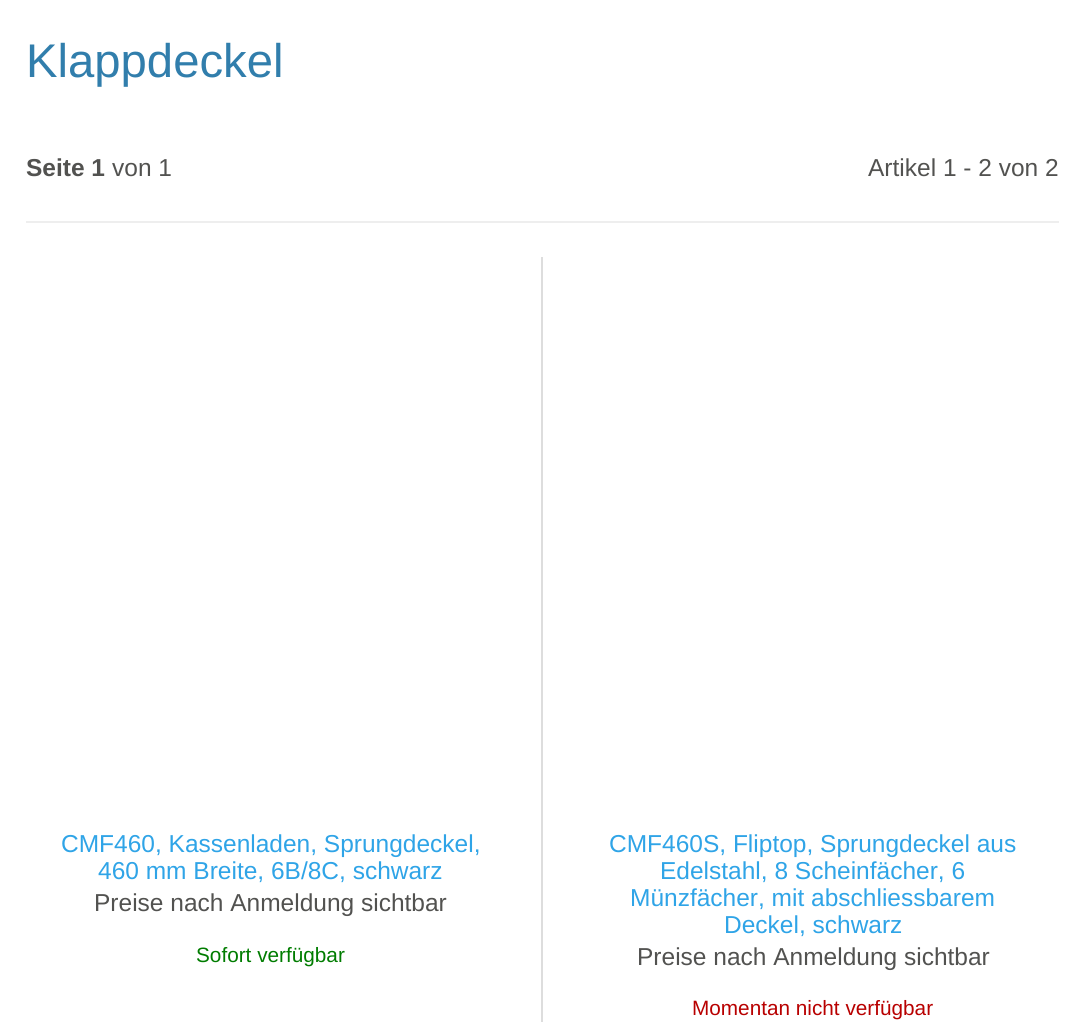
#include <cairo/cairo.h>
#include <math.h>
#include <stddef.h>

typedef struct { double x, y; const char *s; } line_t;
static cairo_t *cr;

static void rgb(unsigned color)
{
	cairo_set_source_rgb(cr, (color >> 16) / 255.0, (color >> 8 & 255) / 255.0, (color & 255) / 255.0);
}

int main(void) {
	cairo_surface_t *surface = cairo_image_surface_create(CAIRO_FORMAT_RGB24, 1085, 1022);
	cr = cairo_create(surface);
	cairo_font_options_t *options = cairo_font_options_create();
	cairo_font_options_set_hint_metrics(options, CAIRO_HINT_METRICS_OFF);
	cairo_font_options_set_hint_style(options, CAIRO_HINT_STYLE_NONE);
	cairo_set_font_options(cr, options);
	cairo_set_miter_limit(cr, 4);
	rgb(0xffffff);
	cairo_paint(cr);
	rgb(0xeeeeee);
	cairo_rectangle(cr, 26, 221, 1033, 2);
	cairo_fill(cr);
	rgb(0xdddddd);
	cairo_rectangle(cr, 541, 257, 2, 765);
	cairo_fill(cr);
	cairo_select_font_face(cr, "Liberation Sans", CAIRO_FONT_SLANT_NORMAL, CAIRO_FONT_WEIGHT_NORMAL);
	cairo_set_font_size(cr, 47.25);
	rgb(0x317eac);
	cairo_move_to(cr, 26, 77);
	cairo_show_text(cr, "Klappdeckel");
	cairo_select_font_face(cr, "Liberation Sans", CAIRO_FONT_SLANT_NORMAL, CAIRO_FONT_WEIGHT_BOLD);
	cairo_set_font_size(cr, 24.5);
	rgb(0x525250);
	cairo_move_to(cr, 26, 176);
	cairo_show_text(cr, "Seite 1");
	cairo_select_font_face(cr, "Liberation Sans", CAIRO_FONT_SLANT_NORMAL, CAIRO_FONT_WEIGHT_NORMAL);
	cairo_move_to(cr, 112, 176);
	cairo_show_text(cr, "von 1");
	cairo_move_to(cr, 868, 176);
	cairo_show_text(cr, "Artikel 1 - 2 von 2");
	rgb(0x2fa4e7);
	cairo_move_to(cr, 61, 852);
	cairo_show_text(cr, "CMF460, Kassenladen, Sprungdeckel,");
	cairo_move_to(cr, 98, 879);
	cairo_show_text(cr, "460 mm Breite, 6B/8C, schwarz");
	rgb(0x525250);
	cairo_move_to(cr, 94, 911);
	cairo_show_text(cr, "Preise nach Anmeldung sichtbar");
	cairo_set_font_size(cr, 20.75);
	rgb(0x007c00);
	cairo_move_to(cr, 196, 962);
	cairo_show_text(cr, "Sofort verfügbar");
	cairo_set_font_size(cr, 24.5);
	rgb(0x2fa4e7);
	{
		static const line_t items[] = {
			{609, 852, "CMF460S, Fliptop, Sprungdeckel aus"},
			{660, 879, "Edelstahl, 8 Scheinfächer, 6"},
			{630, 906, "Münzfächer, mit abschliessbarem"},
			{724, 933, "Deckel, schwarz"},
		};
		for (size_t i = 0; i < sizeof items / sizeof *items; i++) {
			cairo_move_to(cr, items[i].x, items[i].y);
			cairo_show_text(cr, items[i].s);
		}
	}
	rgb(0x525250);
	cairo_move_to(cr, 637, 965);
	cairo_show_text(cr, "Preise nach Anmeldung sichtbar");
	cairo_set_font_size(cr, 20.75);
	rgb(0xb80000);
	cairo_move_to(cr, 692, 1015);
	cairo_show_text(cr, "Momentan nicht verfügbar");
	cairo_surface_write_to_png(surface, "page.png");
	cairo_font_options_destroy(options);
	cairo_destroy(cr);
	cairo_surface_destroy(surface);
	return 0;
}
